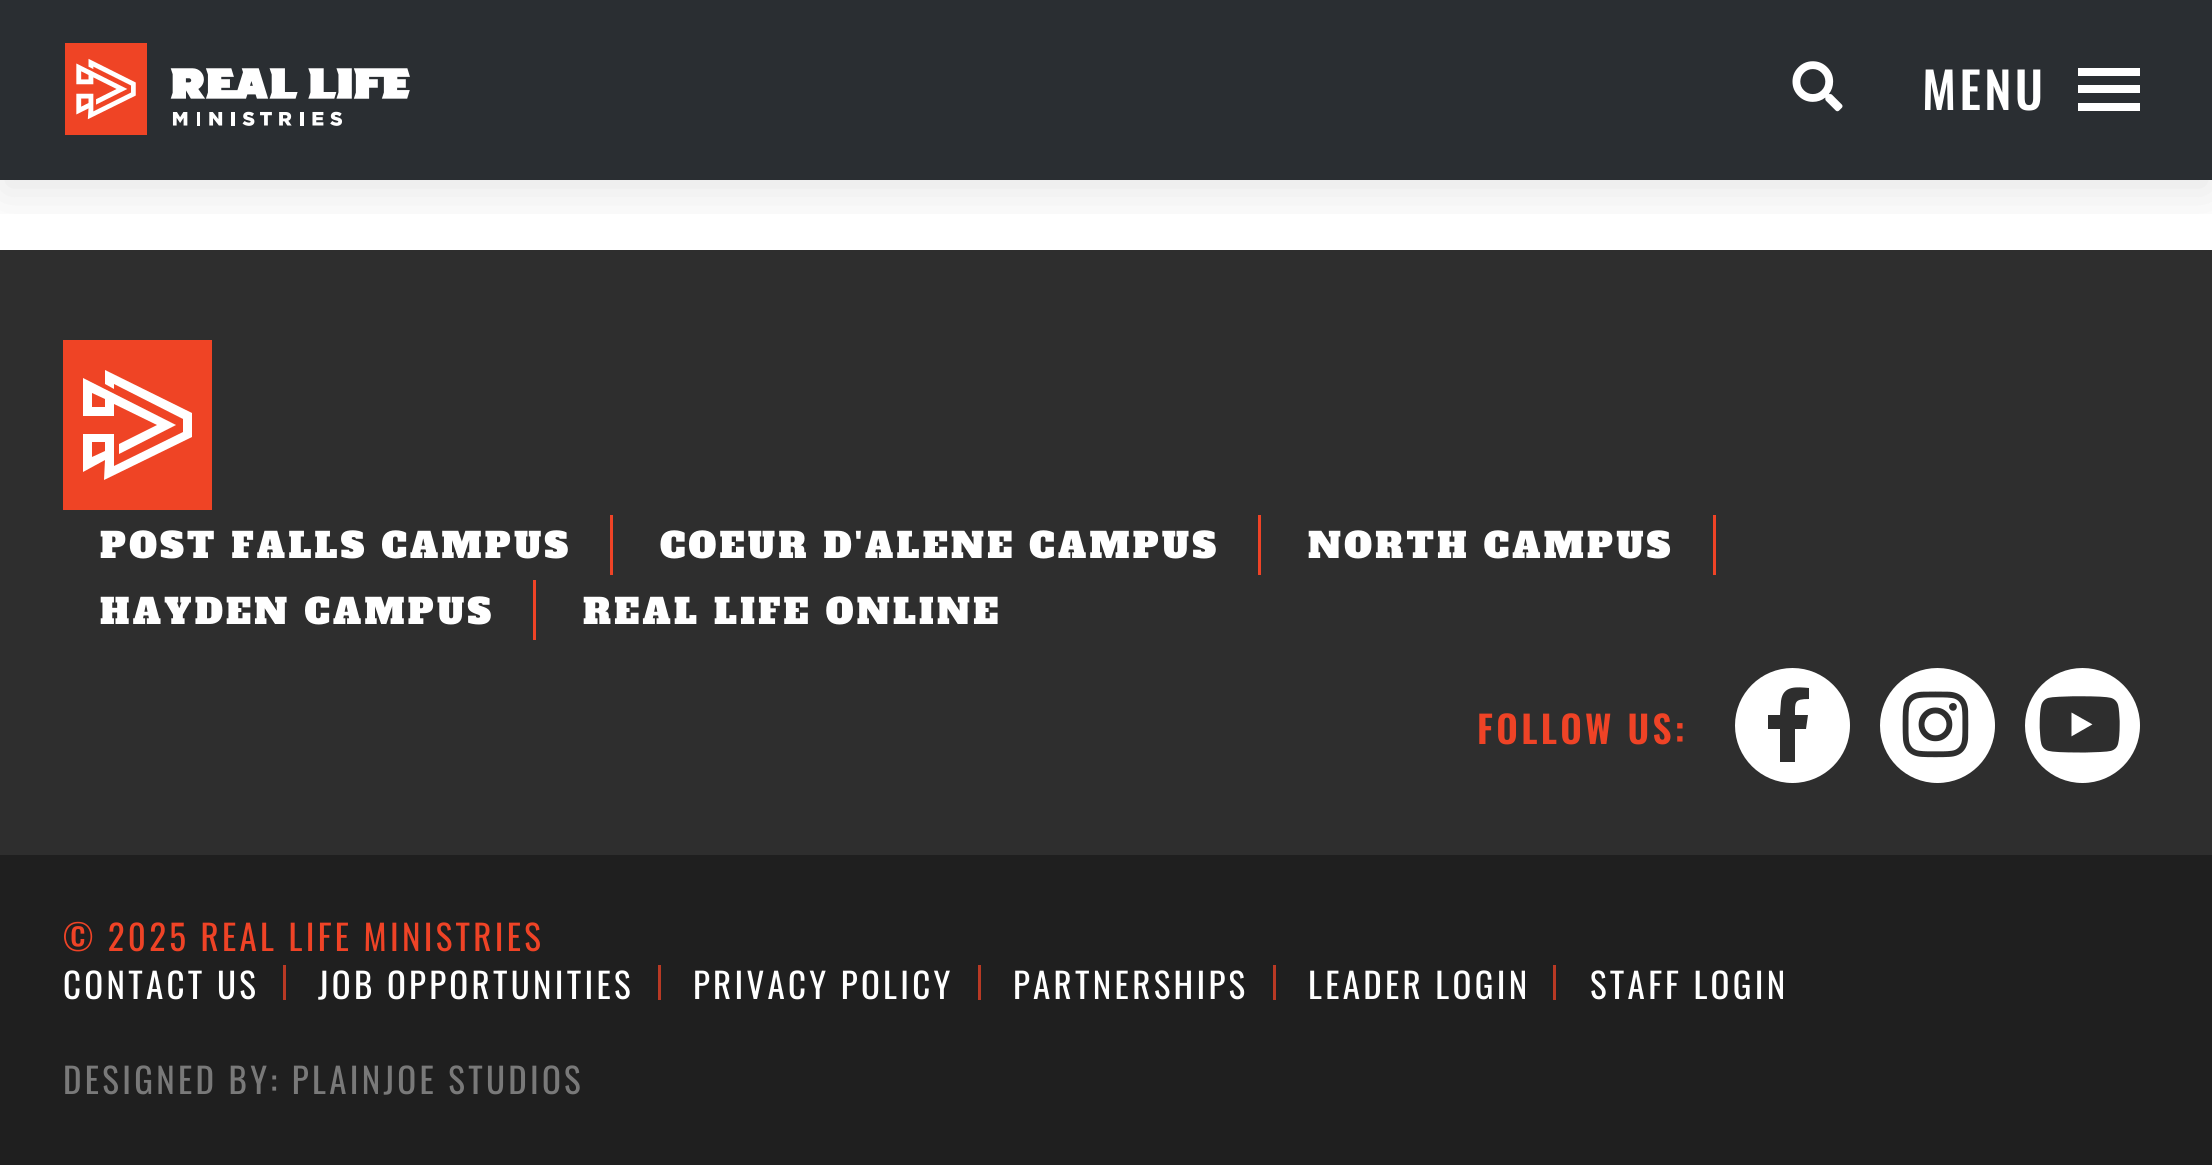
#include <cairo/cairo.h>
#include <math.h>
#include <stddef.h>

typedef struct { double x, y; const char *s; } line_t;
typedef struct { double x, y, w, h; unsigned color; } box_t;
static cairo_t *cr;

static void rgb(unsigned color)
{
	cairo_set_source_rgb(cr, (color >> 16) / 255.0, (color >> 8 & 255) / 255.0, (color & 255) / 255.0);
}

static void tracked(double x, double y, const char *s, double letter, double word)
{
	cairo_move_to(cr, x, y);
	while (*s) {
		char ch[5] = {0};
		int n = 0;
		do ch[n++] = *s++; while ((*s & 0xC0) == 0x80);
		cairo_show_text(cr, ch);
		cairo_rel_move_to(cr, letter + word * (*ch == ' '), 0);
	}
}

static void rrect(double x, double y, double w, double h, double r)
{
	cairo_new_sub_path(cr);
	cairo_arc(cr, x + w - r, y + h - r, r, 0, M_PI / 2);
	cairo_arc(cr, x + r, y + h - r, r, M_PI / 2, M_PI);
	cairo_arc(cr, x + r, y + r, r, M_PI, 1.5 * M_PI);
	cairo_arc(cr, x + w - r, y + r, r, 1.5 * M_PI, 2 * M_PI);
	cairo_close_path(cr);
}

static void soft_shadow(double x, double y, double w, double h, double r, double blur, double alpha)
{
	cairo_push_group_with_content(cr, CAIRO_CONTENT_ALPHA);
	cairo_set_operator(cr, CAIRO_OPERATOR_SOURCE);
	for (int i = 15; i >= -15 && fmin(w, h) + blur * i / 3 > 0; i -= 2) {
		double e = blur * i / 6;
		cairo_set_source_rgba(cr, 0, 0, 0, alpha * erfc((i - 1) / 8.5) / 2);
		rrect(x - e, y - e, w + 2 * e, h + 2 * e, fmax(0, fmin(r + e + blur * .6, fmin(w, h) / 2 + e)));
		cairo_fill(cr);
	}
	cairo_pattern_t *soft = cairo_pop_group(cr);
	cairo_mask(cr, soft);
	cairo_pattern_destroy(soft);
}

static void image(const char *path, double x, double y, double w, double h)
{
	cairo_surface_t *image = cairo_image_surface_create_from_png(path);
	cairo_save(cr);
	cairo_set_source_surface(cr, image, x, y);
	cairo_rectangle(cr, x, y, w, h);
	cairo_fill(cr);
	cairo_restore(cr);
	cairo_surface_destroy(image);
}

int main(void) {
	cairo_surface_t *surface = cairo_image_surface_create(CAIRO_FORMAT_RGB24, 2212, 1165);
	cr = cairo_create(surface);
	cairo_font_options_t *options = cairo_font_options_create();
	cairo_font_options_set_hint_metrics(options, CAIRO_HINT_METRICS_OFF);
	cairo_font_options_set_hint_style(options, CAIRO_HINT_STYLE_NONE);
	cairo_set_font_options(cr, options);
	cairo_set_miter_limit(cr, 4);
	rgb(0xffffff);
	cairo_paint(cr);
	rgb(0x2e2e2e);
	cairo_rectangle(cr, 0, 250, 2212, 605);
	cairo_fill(cr);
	cairo_save(cr);
	cairo_rectangle(cr, 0, 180, 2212, 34);
	cairo_clip(cr);
	rgb(0x000000);
	soft_shadow(0, 13, 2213, 180, 0, 25, 0.1);
	cairo_restore(cr);
	cairo_set_source_rgba(cr, 0.133, 0.149, 0.165, 0.96);
	cairo_rectangle(cr, 0, 0, 2212, 180);
	cairo_fill(cr);
	image("img/1.png", 65, 43, 345, 92);
	image("img/2.png", 1792, 61, 51, 51);
	{
		static const box_t items[] = {
			{2078, 85, 62, 8, 0xffffff},
			{2078, 68, 62, 8, 0xffffff},
			{2078, 103, 62, 8, 0xffffff},
			{63, 340, 149, 170, 0xef4425},
		};
		for (size_t i = 0; i < sizeof items / sizeof *items; i++) {
			rgb(items[i].color);
			cairo_rectangle(cr, items[i].x, items[i].y, items[i].w, items[i].h);
			cairo_fill(cr);
		}
	}
	rgb(0xffffff);
	cairo_set_fill_rule(cr, CAIRO_FILL_RULE_EVEN_ODD);
	cairo_new_path(cr);
	cairo_move_to(cr, 105, 407);
	cairo_line_to(cr, 92, 407);
	cairo_line_to(cr, 92, 393);
	cairo_line_to(cr, 105, 399);
	cairo_close_path(cr);
	cairo_move_to(cr, 105, 451);
	cairo_line_to(cr, 92, 457);
	cairo_line_to(cr, 92, 442);
	cairo_line_to(cr, 105, 442);
	cairo_close_path(cr);
	cairo_move_to(cr, 105, 370);
	cairo_line_to(cr, 105, 384);
	cairo_line_to(cr, 114, 389);
	cairo_line_to(cr, 114, 384);
	cairo_line_to(cr, 183, 419);
	cairo_line_to(cr, 183, 432);
	cairo_line_to(cr, 114, 466);
	cairo_line_to(cr, 114, 434);
	cairo_line_to(cr, 83, 434);
	cairo_line_to(cr, 83, 472);
	cairo_line_to(cr, 105, 460);
	cairo_line_to(cr, 104, 480);
	cairo_line_to(cr, 192, 437);
	cairo_line_to(cr, 192, 413);
	cairo_close_path(cr);
	cairo_move_to(cr, 114, 404);
	cairo_line_to(cr, 157, 425);
	cairo_line_to(cr, 119, 444);
	cairo_line_to(cr, 119, 454);
	cairo_line_to(cr, 176, 425);
	cairo_line_to(cr, 83, 378);
	cairo_line_to(cr, 83, 416);
	cairo_line_to(cr, 114, 416);
	cairo_close_path(cr);
	cairo_fill(cr);
	{
		static const box_t items[] = {
			{610, 515, 3, 60, 0xef4326},
			{1258, 515, 3, 60, 0xef4326},
			{1713, 515, 3, 60, 0xef4326},
			{533, 580, 3, 60, 0xef4326},
		};
		for (size_t i = 0; i < sizeof items / sizeof *items; i++) {
			rgb(items[i].color);
			cairo_rectangle(cr, items[i].x, items[i].y, items[i].w, items[i].h);
			cairo_fill(cr);
		}
	}
	rgb(0xffffff);
	cairo_arc(cr, 1792.5, 725.5, 57.5, 0, 2 * M_PI);
	cairo_fill(cr);
	rgb(0x2e2e2e);
	cairo_set_fill_rule(cr, CAIRO_FILL_RULE_WINDING);
	cairo_new_path(cr);
	cairo_move_to(cr, 1806, 729);
	cairo_line_to(cr, 1795, 729);
	cairo_line_to(cr, 1795, 762);
	cairo_line_to(cr, 1780, 762);
	cairo_line_to(cr, 1780, 729);
	cairo_line_to(cr, 1768, 729);
	cairo_line_to(cr, 1768, 715);
	cairo_line_to(cr, 1780, 715);
	cairo_line_to(cr, 1781, 701);
	cairo_curve_to(cr, 1783, 685, 1797, 687, 1809, 688);
	cairo_line_to(cr, 1809, 699);
	cairo_curve_to(cr, 1794, 699, 1795, 702, 1795, 715);
	cairo_line_to(cr, 1808, 715);
	cairo_close_path(cr);
	cairo_fill(cr);
	rgb(0xffffff);
	cairo_arc(cr, 1937.5, 725.5, 57.5, 0, 2 * M_PI);
	cairo_fill(cr);
	image("img/3.png", 1902, 691, 67, 67);
	cairo_arc(cr, 2082.5, 725.5, 57.5, 0, 2 * M_PI);
	cairo_fill(cr);
	image("img/4.png", 2039, 696, 81, 57);
	{
		static const box_t items[] = {
			{0, 855, 2212, 310, 0x1f1f1f},
			{283, 965, 3, 35, 0xb83924},
			{658, 965, 3, 35, 0xb83924},
			{978, 965, 3, 35, 0xb83924},
			{1273, 965, 3, 35, 0xb83924},
			{1553, 965, 3, 35, 0xb83924},
		};
		for (size_t i = 0; i < sizeof items / sizeof *items; i++) {
			rgb(items[i].color);
			cairo_rectangle(cr, items[i].x, items[i].y, items[i].w, items[i].h);
			cairo_fill(cr);
		}
	}
	cairo_select_font_face(cr, "Oswald Medium", CAIRO_FONT_SLANT_NORMAL, CAIRO_FONT_WEIGHT_NORMAL);
	cairo_set_font_size(cr, 50);
	rgb(0xffffff);
	tracked(1922, 110, "MENU", 3.3, 0);
	cairo_select_font_face(cr, "Alfa Slab One", CAIRO_FONT_SLANT_NORMAL, CAIRO_FONT_WEIGHT_NORMAL);
	cairo_set_font_size(cr, 35);
	{
		static const line_t items[] = {
			{100, 558, "POST FALLS CAMPUS"},
			{660, 558, "COEUR D'ALENE CAMPUS"},
			{1308, 558, "NORTH CAMPUS"},
			{100, 624, "HAYDEN CAMPUS"},
			{583, 624, "REAL LIFE ONLINE"},
		};
		for (size_t i = 0; i < sizeof items / sizeof *items; i++) {
			tracked(items[i].x, items[i].y, items[i].s, 3.3, 0);
		}
	}
	cairo_select_font_face(cr, "Oswald SemiBold", CAIRO_FONT_SLANT_NORMAL, CAIRO_FONT_WEIGHT_NORMAL);
	cairo_set_font_size(cr, 37.5);
	rgb(0xef4326);
	tracked(1477, 744, "FOLLOW US:", 3.3, 0);
	cairo_select_font_face(cr, "Oswald", CAIRO_FONT_SLANT_NORMAL, CAIRO_FONT_WEIGHT_NORMAL);
	cairo_set_font_size(cr, 35);
	tracked(63, 951, "© 2025 REAL LIFE MINISTRIES", 3.3, 0);
	rgb(0xffffff);
	{
		static const line_t items[] = {
			{63, 999, "CONTACT US"},
			{318, 999, "JOB OPPORTUNITIES"},
			{693, 999, "PRIVACY POLICY"},
			{1013, 999, "PARTNERSHIPS"},
			{1308, 999, "LEADER LOGIN"},
			{1590, 999, "STAFF LOGIN"},
		};
		for (size_t i = 0; i < sizeof items / sizeof *items; i++) {
			tracked(items[i].x, items[i].y, items[i].s, 3.3, 0);
		}
	}
	rgb(0x797979);
	tracked(63, 1094, "DESIGNED BY: PLAINJOE STUDIOS", 3.3, 0);
	cairo_surface_write_to_png(surface, "page.png");
	cairo_font_options_destroy(options);
	cairo_destroy(cr);
	cairo_surface_destroy(surface);
	return 0;
}
